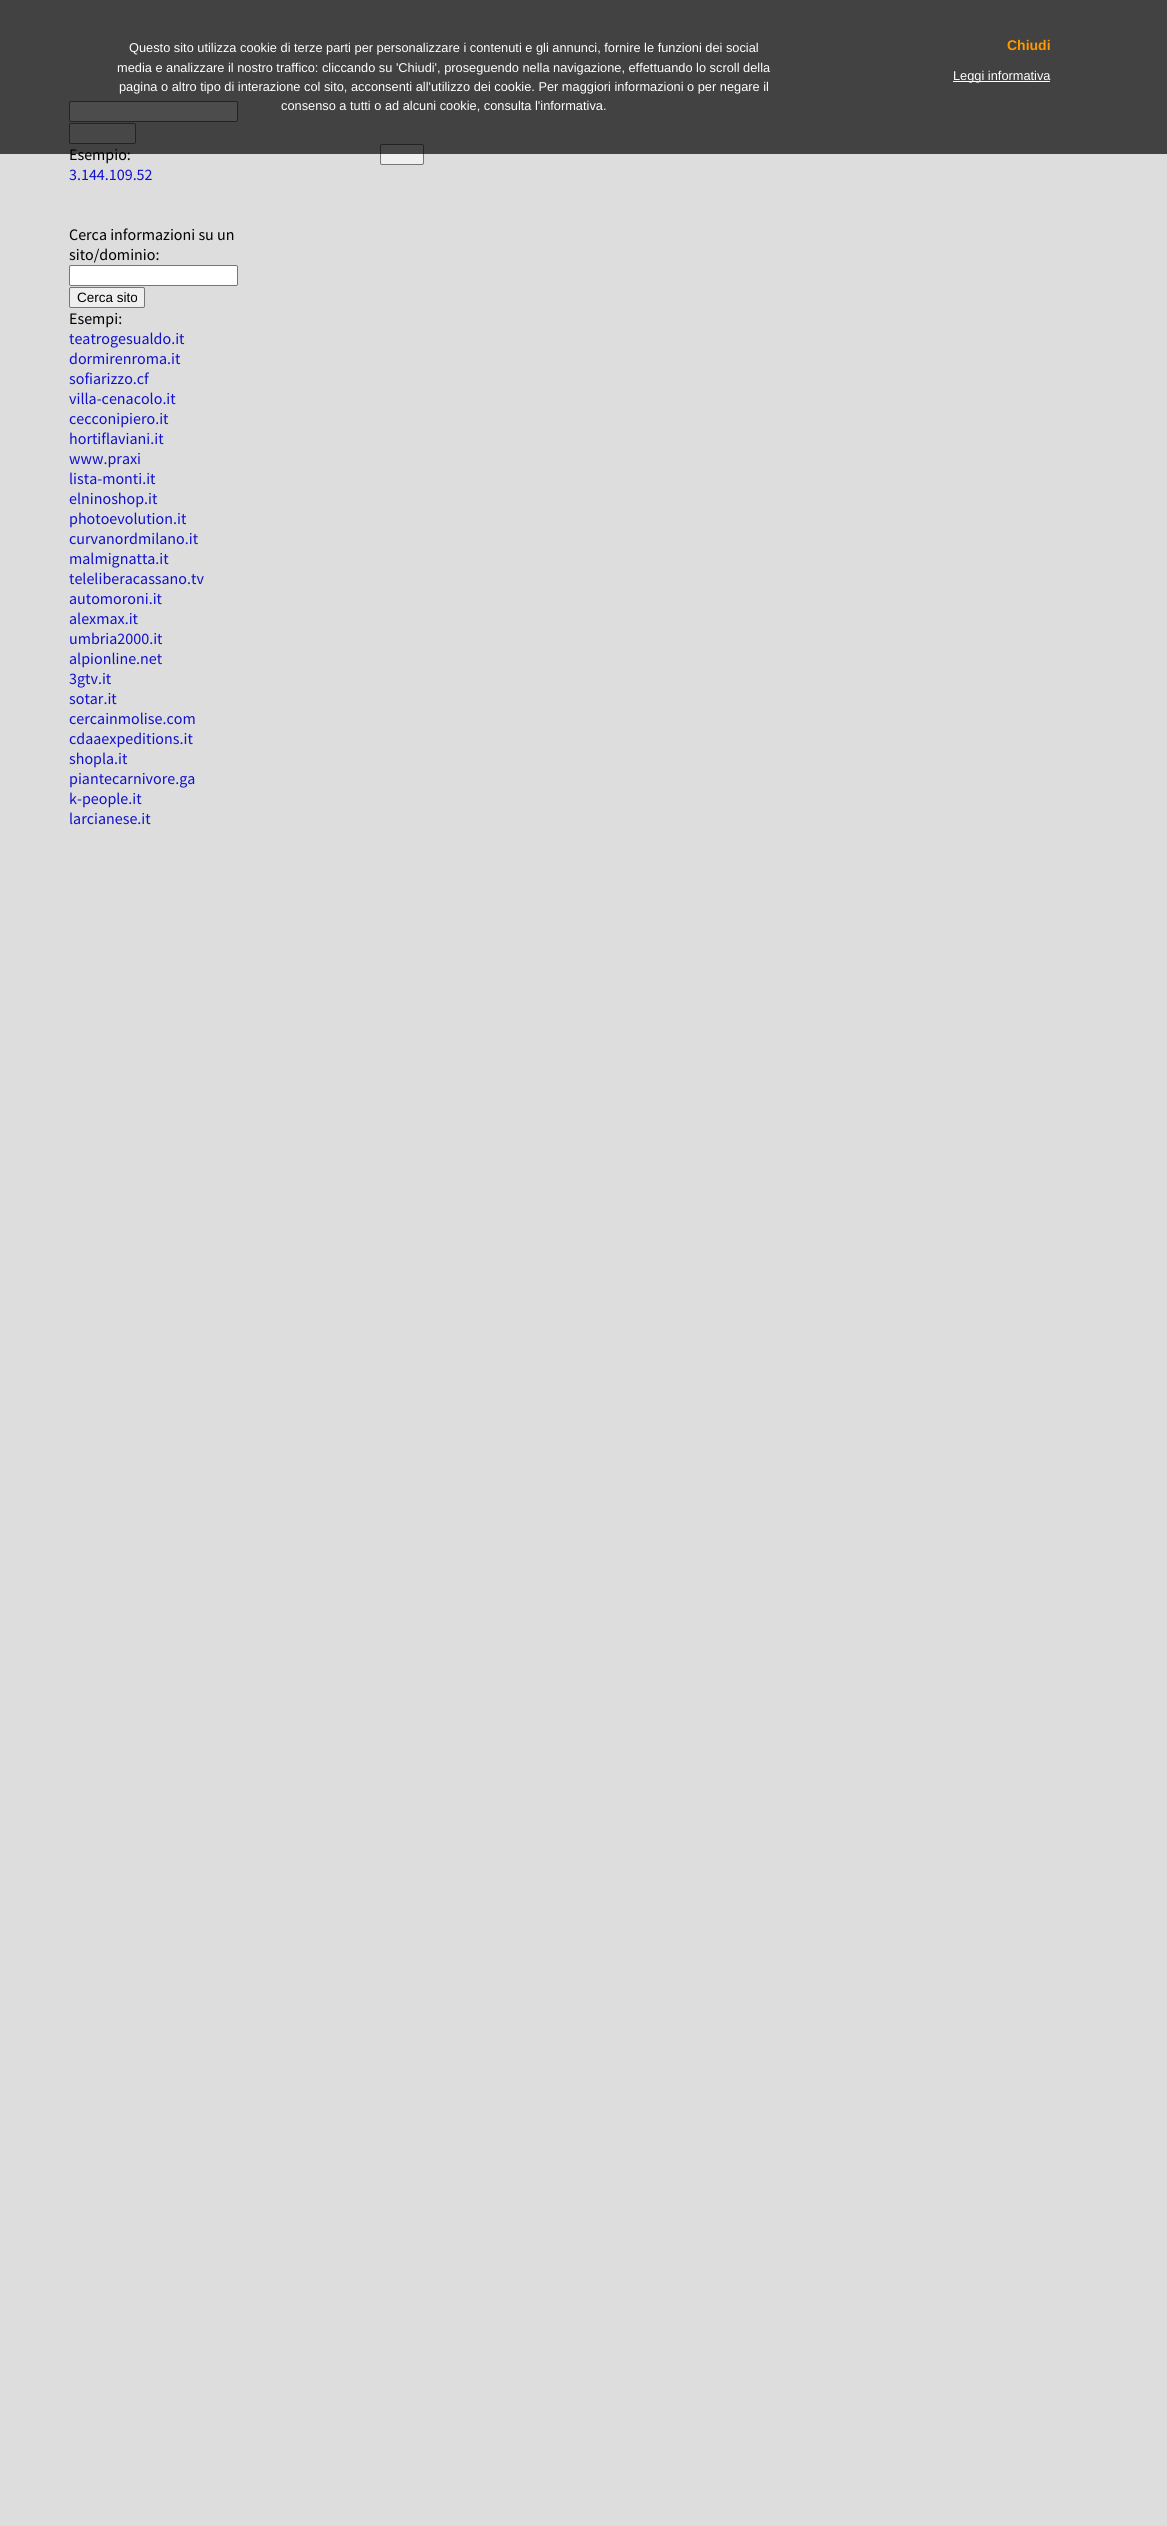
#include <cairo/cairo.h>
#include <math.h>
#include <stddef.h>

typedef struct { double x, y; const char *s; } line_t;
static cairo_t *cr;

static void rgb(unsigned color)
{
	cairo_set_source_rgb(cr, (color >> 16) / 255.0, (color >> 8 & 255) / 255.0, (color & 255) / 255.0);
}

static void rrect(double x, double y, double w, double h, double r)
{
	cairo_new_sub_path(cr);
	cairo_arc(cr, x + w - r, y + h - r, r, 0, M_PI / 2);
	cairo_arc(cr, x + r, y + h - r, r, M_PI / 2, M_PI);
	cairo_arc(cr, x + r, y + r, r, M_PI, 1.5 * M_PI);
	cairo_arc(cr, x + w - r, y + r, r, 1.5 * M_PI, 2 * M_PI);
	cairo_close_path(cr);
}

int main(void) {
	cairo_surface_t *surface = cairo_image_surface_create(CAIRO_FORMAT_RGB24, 1167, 2526);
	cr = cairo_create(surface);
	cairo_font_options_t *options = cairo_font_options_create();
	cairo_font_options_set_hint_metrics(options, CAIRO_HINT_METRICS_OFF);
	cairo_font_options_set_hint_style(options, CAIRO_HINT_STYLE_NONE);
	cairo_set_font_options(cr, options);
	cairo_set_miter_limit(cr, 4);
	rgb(0xdddddd);
	cairo_paint(cr);
	rgb(0xffffff);
	rrect(69.5, 101.5, 168, 20, 1.5);
	cairo_fill_preserve(cr);
	rgb(0x767676);
	cairo_set_line_width(cr, 1);
	cairo_stroke(cr);
	rgb(0xefefef);
	rrect(69.5, 123.5, 66, 20, 1.5);
	cairo_fill_preserve(cr);
	rgb(0x767676);
	cairo_stroke(cr);
	rgb(0xffffff);
	rrect(69.5, 265.5, 168, 20, 1.5);
	cairo_fill_preserve(cr);
	rgb(0x767676);
	cairo_stroke(cr);
	rgb(0xefefef);
	rrect(69.5, 287.5, 75, 20, 1.5);
	cairo_fill_preserve(cr);
	rgb(0x767676);
	cairo_stroke(cr);
	rgb(0xefefef);
	rrect(380.5, 144.5, 43, 20, 1.5);
	cairo_fill_preserve(cr);
	rgb(0x767676);
	cairo_stroke(cr);
	cairo_select_font_face(cr, "Source Sans Pro", CAIRO_FONT_SLANT_NORMAL, CAIRO_FONT_WEIGHT_NORMAL);
	cairo_set_font_size(cr, 16);
	rgb(0x000000);
	cairo_move_to(cr, 69, 160);
	cairo_show_text(cr, "Esempio:");
	cairo_set_source_rgba(cr, 0, 0, 0, 0.7);
	cairo_rectangle(cr, 0, 0, 1167, 154);
	cairo_fill(cr);
	rgb(0xffffff);
	cairo_rectangle(cr, 953, 81, 97, 1);
	cairo_fill(cr);
	cairo_select_font_face(cr, "Liberation Sans", CAIRO_FONT_SLANT_NORMAL, CAIRO_FONT_WEIGHT_NORMAL);
	cairo_set_font_size(cr, 12.8);
	cairo_move_to(cr, 953, 80);
	cairo_show_text(cr, "Leggi informativa");
	cairo_select_font_face(cr, "Liberation Sans", CAIRO_FONT_SLANT_NORMAL, CAIRO_FONT_WEIGHT_BOLD);
	cairo_set_font_size(cr, 14);
	rgb(0xff9900);
	cairo_move_to(cr, 1007, 50);
	cairo_show_text(cr, "Chiudi");
	cairo_select_font_face(cr, "Liberation Sans", CAIRO_FONT_SLANT_NORMAL, CAIRO_FONT_WEIGHT_NORMAL);
	cairo_set_font_size(cr, 12.8);
	rgb(0xffffff);
	{
		static const line_t items[] = {
			{281, 110, "consenso a tutti o ad alcuni cookie, consulta l'informativa."},
			{119, 91, "pagina o altro tipo di interazione col sito, acconsenti all'utilizzo dei cookie. Per maggiori informazioni o per negare il"},
			{117, 72, "media e analizzare il nostro traffico: cliccando su 'Chiudi', proseguendo nella navigazione, effettuando lo scroll della"},
			{129, 52, "Questo sito utilizza cookie di terze parti per personalizzare i contenuti e gli annunci, fornire le funzioni dei social"},
		};
		for (size_t i = 0; i < sizeof items / sizeof *items; i++) {
			cairo_move_to(cr, items[i].x, items[i].y);
			cairo_show_text(cr, items[i].s);
		}
	}
	cairo_select_font_face(cr, "Source Sans Pro", CAIRO_FONT_SLANT_NORMAL, CAIRO_FONT_WEIGHT_NORMAL);
	cairo_set_font_size(cr, 16);
	rgb(0x1111cc);
	cairo_move_to(cr, 69, 180);
	cairo_show_text(cr, "3.144.109.52");
	rgb(0x000000);
	cairo_move_to(cr, 69, 240);
	cairo_show_text(cr, "Cerca informazioni su un");
	cairo_move_to(cr, 69, 260);
	cairo_show_text(cr, "sito/dominio:");
	cairo_select_font_face(cr, "Liberation Sans", CAIRO_FONT_SLANT_NORMAL, CAIRO_FONT_WEIGHT_NORMAL);
	cairo_set_font_size(cr, 13.5);
	cairo_move_to(cr, 77, 302);
	cairo_show_text(cr, "Cerca sito");
	cairo_select_font_face(cr, "Source Sans Pro", CAIRO_FONT_SLANT_NORMAL, CAIRO_FONT_WEIGHT_NORMAL);
	cairo_set_font_size(cr, 16);
	cairo_move_to(cr, 69, 324);
	cairo_show_text(cr, "Esempi:");
	rgb(0x1111cc);
	{
		static const line_t items[] = {
			{69, 344, "teatrogesualdo.it"},
			{69, 364, "dormirenroma.it"},
			{69, 384, "sofiarizzo.cf"},
			{69, 404, "villa-cenacolo.it"},
			{69, 424, "cecconipiero.it"},
			{69, 444, "hortiflaviani.it"},
			{69, 464, "www.praxi"},
			{69, 484, "lista-monti.it"},
			{69, 504, "elninoshop.it"},
			{69, 524, "photoevolution.it"},
			{69, 544, "curvanordmilano.it"},
			{69, 564, "malmignatta.it"},
			{69, 584, "teleliberacassano.tv"},
			{69, 604, "automoroni.it"},
			{69, 624, "alexmax.it"},
			{69, 644, "umbria2000.it"},
			{69, 664, "alpionline.net"},
			{69, 684, "3gtv.it"},
			{69, 704, "sotar.it"},
			{69, 724, "cercainmolise.com"},
			{69, 744, "cdaaexpeditions.it"},
			{69, 764, "shopla.it"},
			{69, 784, "piantecarnivore.ga"},
			{69, 804, "k-people.it"},
			{69, 824, "larcianese.it"},
		};
		for (size_t i = 0; i < sizeof items / sizeof *items; i++) {
			cairo_move_to(cr, items[i].x, items[i].y);
			cairo_show_text(cr, items[i].s);
		}
	}
	cairo_surface_write_to_png(surface, "page.png");
	cairo_font_options_destroy(options);
	cairo_destroy(cr);
	cairo_surface_destroy(surface);
	return 0;
}
